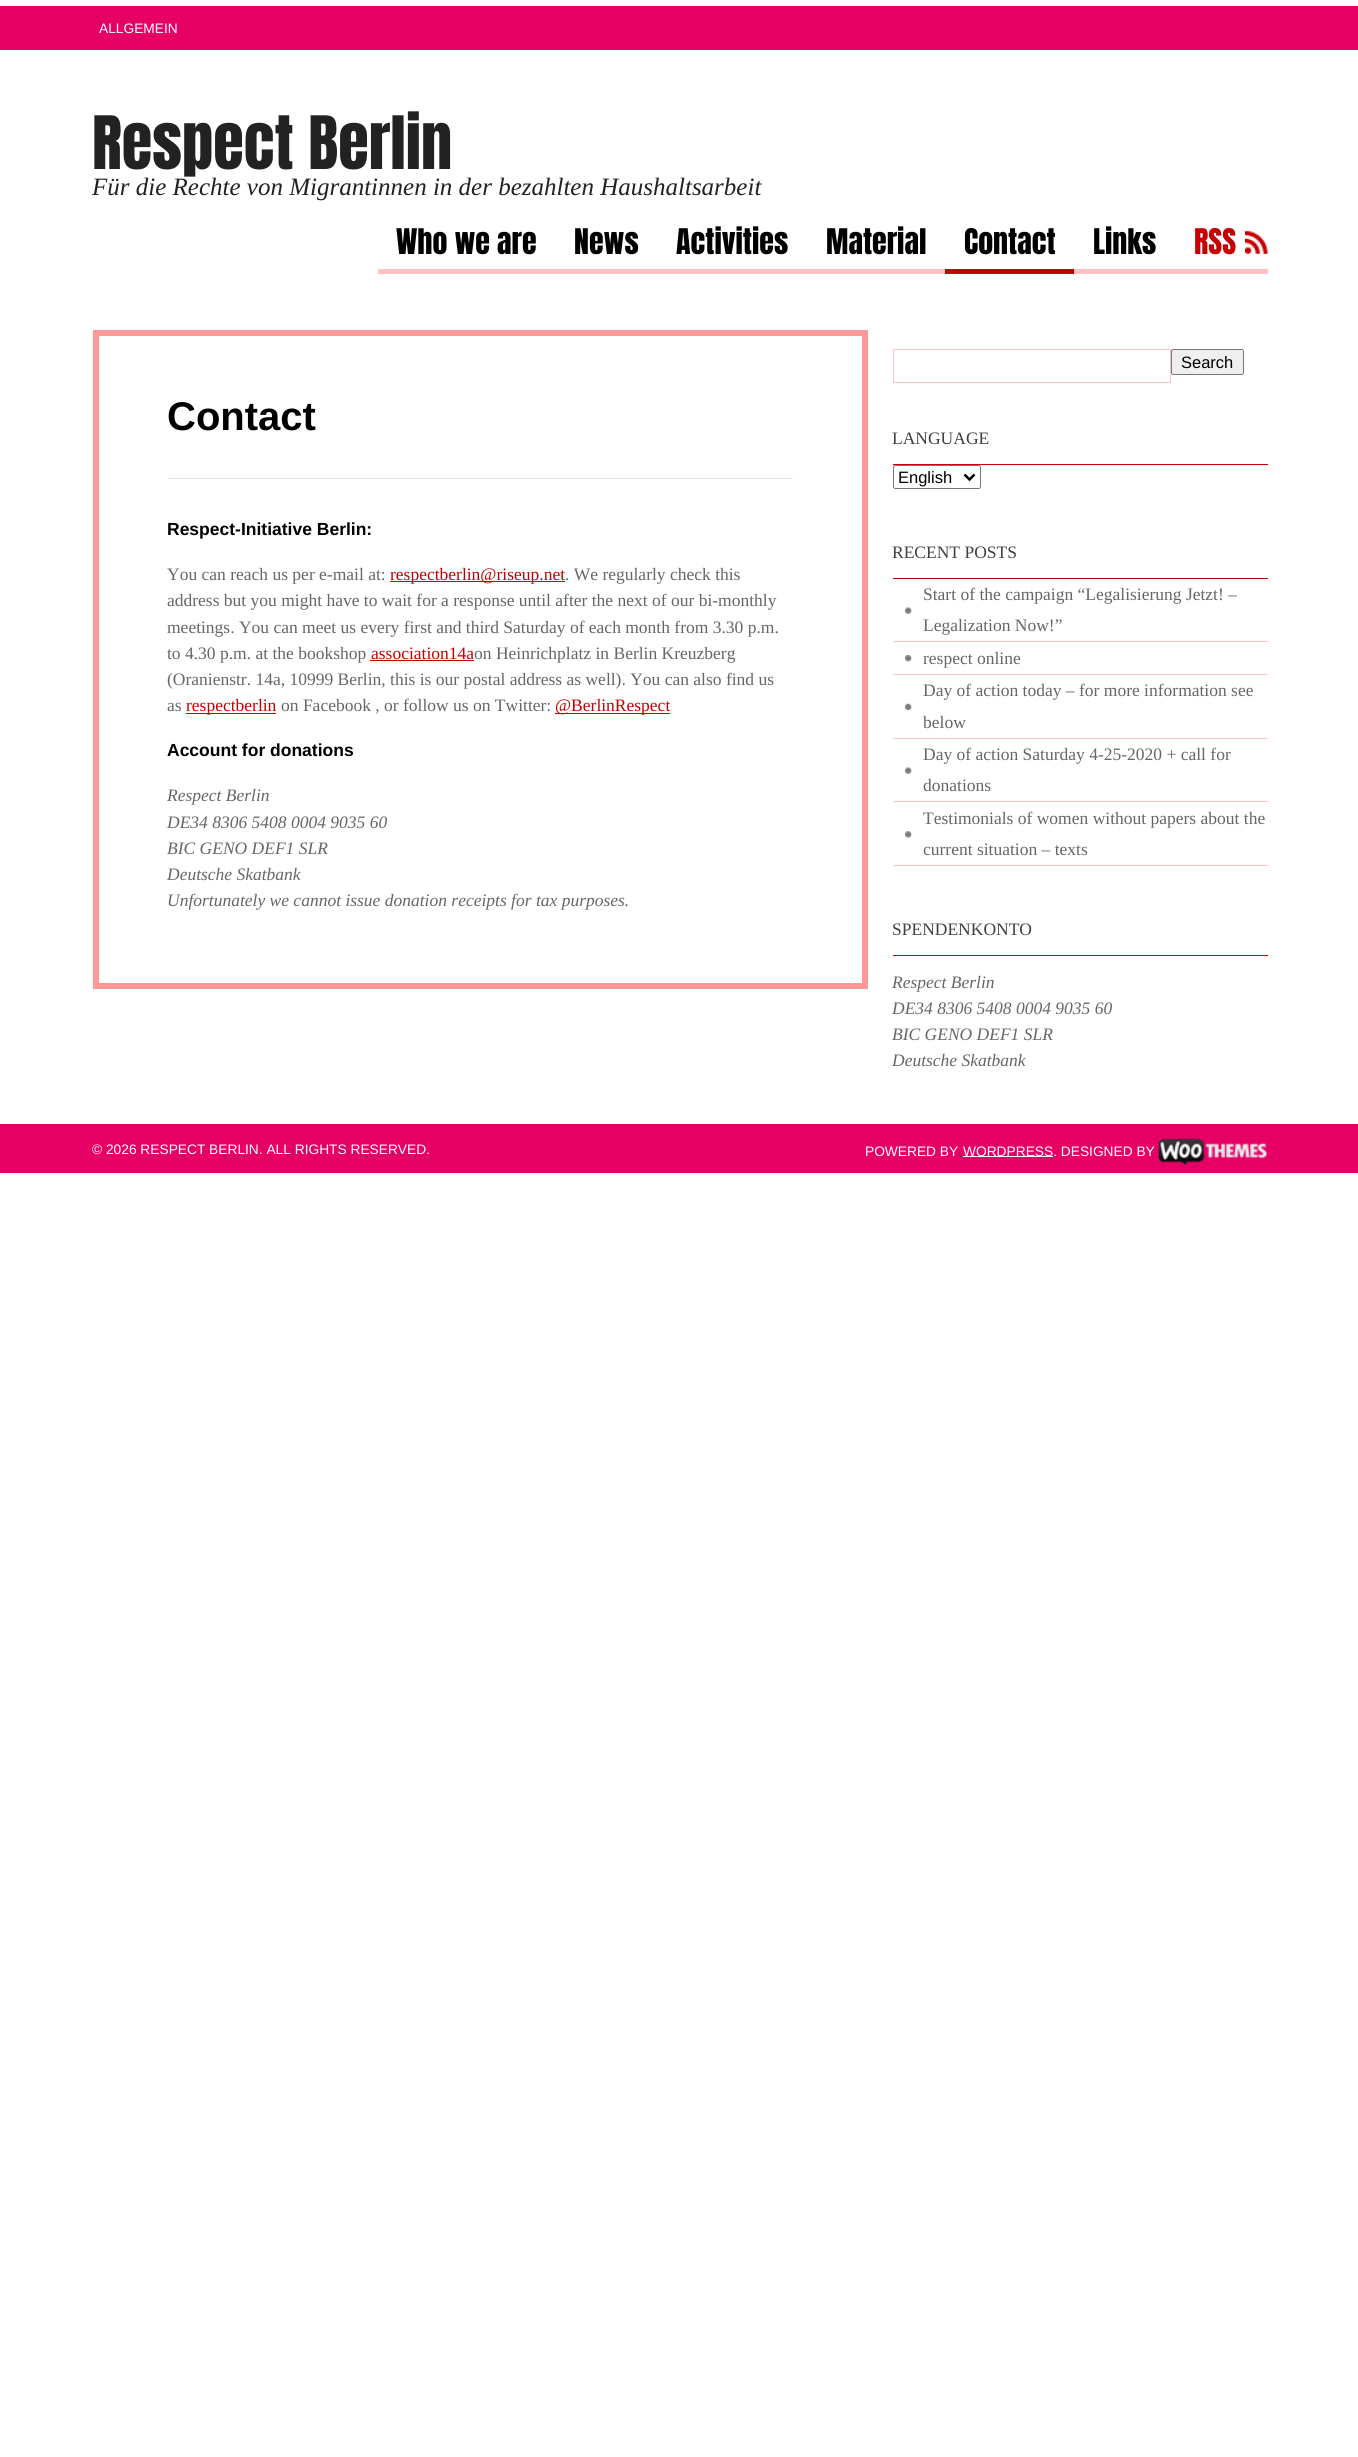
#include <cairo/cairo.h>
#include <math.h>
#include <stddef.h>

typedef struct { double x, y; const char *s; } line_t;
typedef struct { double x, y, w, h; unsigned color; } box_t;
static cairo_t *cr;

static void rgb(unsigned color)
{
	cairo_set_source_rgb(cr, (color >> 16) / 255.0, (color >> 8 & 255) / 255.0, (color & 255) / 255.0);
}

static void rrect(double x, double y, double w, double h, double r)
{
	cairo_new_sub_path(cr);
	cairo_arc(cr, x + w - r, y + h - r, r, 0, M_PI / 2);
	cairo_arc(cr, x + r, y + h - r, r, M_PI / 2, M_PI);
	cairo_arc(cr, x + r, y + r, r, M_PI, 1.5 * M_PI);
	cairo_arc(cr, x + w - r, y + r, r, 1.5 * M_PI, 2 * M_PI);
	cairo_close_path(cr);
}

static void image(const char *path, double x, double y, double w, double h)
{
	cairo_surface_t *image = cairo_image_surface_create_from_png(path);
	cairo_save(cr);
	cairo_set_source_surface(cr, image, x, y);
	cairo_rectangle(cr, x, y, w, h);
	cairo_fill(cr);
	cairo_restore(cr);
	cairo_surface_destroy(image);
}

int main(void) {
	cairo_surface_t *surface = cairo_image_surface_create(CAIRO_FORMAT_RGB24, 1358, 2457);
	cr = cairo_create(surface);
	cairo_font_options_t *options = cairo_font_options_create();
	cairo_font_options_set_hint_metrics(options, CAIRO_HINT_METRICS_OFF);
	cairo_font_options_set_hint_style(options, CAIRO_HINT_STYLE_NONE);
	cairo_set_font_options(cr, options);
	cairo_set_miter_limit(cr, 4);
	rgb(0xffffff);
	cairo_paint(cr);
	{
		static const box_t items[] = {
			{0, 6, 1358, 44, 0xe60066},
			{378, 269, 567, 5, 0xffc1c1},
			{945, 269, 129, 5, 0xc40000},
			{1074, 269, 194, 5, 0xffc1c1},
		};
		for (size_t i = 0; i < sizeof items / sizeof *items; i++) {
			rgb(items[i].color);
			cairo_rectangle(cr, items[i].x, items[i].y, items[i].w, items[i].h);
			cairo_fill(cr);
		}
	}
	image("img/1.png", 1245, 231, 23, 23);
	cairo_rectangle(cr, 96, 333, 769, 653);
	rgb(0xff9999);
	cairo_set_line_width(cr, 6);
	cairo_stroke(cr);
	{
		static const box_t items[] = {
			{168, 478, 625, 1, 0xe7e7e7},
			{390, 581, 175, 1, 0xc40000},
			{370, 660, 104, 1, 0xc40000},
			{186, 713, 90, 1, 0xc40000},
			{555, 713, 115, 1, 0xc40000},
		};
		for (size_t i = 0; i < sizeof items / sizeof *items; i++) {
			rgb(items[i].color);
			cairo_rectangle(cr, items[i].x, items[i].y, items[i].w, items[i].h);
			cairo_fill(cr);
		}
	}
	cairo_rectangle(cr, 893.5, 349.5, 277, 33);
	rgb(0xffc1c1);
	cairo_set_line_width(cr, 1);
	cairo_stroke(cr);
	rgb(0xefefef);
	rrect(1171.5, 349.5, 72, 25, 2);
	cairo_fill_preserve(cr);
	rgb(0x767676);
	cairo_stroke(cr);
	rgb(0xc40000);
	cairo_rectangle(cr, 893, 464, 375, 1);
	cairo_fill(cr);
	rrect(893.5, 465.5, 87, 23, 2);
	rgb(0x767676);
	cairo_stroke(cr);
	cairo_new_path(cr);
	cairo_move_to(cr, 964.5, 474.5);
	cairo_line_to(cr, 969.5, 479.5);
	cairo_line_to(cr, 974.5, 474.5);
	rgb(0x000000);
	cairo_set_line_width(cr, 2.5);
	cairo_stroke(cr);
	rgb(0xc40000);
	cairo_rectangle(cr, 893, 578, 375, 1);
	cairo_fill(cr);
	image("img/2.png", 905, 607, 7, 7);
	rgb(0xffc1c1);
	cairo_rectangle(cr, 893, 641, 375, 1);
	cairo_fill(cr);
	image("img/3.png", 905, 655, 7, 7);
	cairo_rectangle(cr, 893, 674, 375, 1);
	cairo_fill(cr);
	image("img/4.png", 905, 703, 7, 7);
	cairo_rectangle(cr, 893, 738, 375, 1);
	cairo_fill(cr);
	image("img/2.png", 905, 767, 7, 7);
	cairo_rectangle(cr, 893, 801, 375, 1);
	cairo_fill(cr);
	image("img/5.png", 905, 831, 7, 7);
	{
		static const box_t items[] = {
			{893, 865, 375, 1, 0xffc1c1},
			{893, 955, 375, 1, 0xc40000},
			{0, 1124, 1358, 49, 0xe60066},
			{963, 1156, 90, 1, 0xffffff},
		};
		for (size_t i = 0; i < sizeof items / sizeof *items; i++) {
			rgb(items[i].color);
			cairo_rectangle(cr, items[i].x, items[i].y, items[i].w, items[i].h);
			cairo_fill(cr);
		}
	}
	image("img/6.png", 1158, 1138, 110, 27);
	cairo_select_font_face(cr, "Liberation Sans", CAIRO_FONT_SLANT_NORMAL, CAIRO_FONT_WEIGHT_NORMAL);
	cairo_set_font_size(cr, 13.75);
	cairo_move_to(cr, 99, 33);
	cairo_show_text(cr, "ALLGEMEIN");
	cairo_select_font_face(cr, "Anton", CAIRO_FONT_SLANT_NORMAL, CAIRO_FONT_WEIGHT_NORMAL);
	cairo_set_font_size(cr, 62.5);
	rgb(0x222222);
	cairo_move_to(cr, 92, 169);
	cairo_show_text(cr, "Respect Berlin");
	cairo_select_font_face(cr, "Liberation Serif", CAIRO_FONT_SLANT_ITALIC, CAIRO_FONT_WEIGHT_NORMAL);
	cairo_set_font_size(cr, 25);
	cairo_move_to(cr, 92, 195);
	cairo_show_text(cr, "Für die Rechte von Migrantinnen in der bezahlten Haushaltsarbeit");
	cairo_select_font_face(cr, "Anton", CAIRO_FONT_SLANT_NORMAL, CAIRO_FONT_WEIGHT_NORMAL);
	cairo_set_font_size(cr, 30);
	rgb(0x000000);
	{
		static const line_t items[] = {
			{396, 254, "Who we are"},
			{574, 254, "News"},
			{676, 254, "Activities"},
			{826, 254, "Material"},
			{964, 254, "Contact"},
			{1093, 254, "Links"},
		};
		for (size_t i = 0; i < sizeof items / sizeof *items; i++) {
			cairo_move_to(cr, items[i].x, items[i].y);
			cairo_show_text(cr, items[i].s);
		}
	}
	rgb(0xc40000);
	cairo_move_to(cr, 1194, 254);
	cairo_show_text(cr, "RSS");
	cairo_select_font_face(cr, "Liberation Sans", CAIRO_FONT_SLANT_NORMAL, CAIRO_FONT_WEIGHT_BOLD);
	cairo_set_font_size(cr, 40);
	rgb(0x000000);
	cairo_move_to(cr, 167, 430);
	cairo_show_text(cr, "Contact");
	cairo_set_font_size(cr, 17.5);
	cairo_move_to(cr, 167, 535);
	cairo_show_text(cr, "Respect-Initiative Berlin:");
	cairo_select_font_face(cr, "Liberation Serif", CAIRO_FONT_SLANT_NORMAL, CAIRO_FONT_WEIGHT_NORMAL);
	rgb(0x666666);
	cairo_move_to(cr, 167, 580);
	cairo_show_text(cr, "You can reach us per e-mail at:");
	rgb(0xc40000);
	cairo_move_to(cr, 390, 580);
	cairo_show_text(cr, "respectberlin@riseup.net");
	rgb(0x666666);
	{
		static const line_t items[] = {
			{565, 580, ". We regularly check this"},
			{167, 606, "address but you might have to wait for a response until after the next of our bi-monthly"},
			{167, 633, "meetings. You can meet us every first and third Saturday of each month from 3.30 p.m."},
			{167, 659, "to 4.30 p.m. at the bookshop"},
		};
		for (size_t i = 0; i < sizeof items / sizeof *items; i++) {
			cairo_move_to(cr, items[i].x, items[i].y);
			cairo_show_text(cr, items[i].s);
		}
	}
	rgb(0xc40000);
	cairo_move_to(cr, 371, 659);
	cairo_show_text(cr, "association14a");
	rgb(0x666666);
	{
		static const line_t items[] = {
			{474, 659, "on Heinrichplatz in Berlin Kreuzberg"},
			{167, 685, "(Oranienstr. 14a, 10999 Berlin, this is our postal address as well). You can also find us"},
			{167, 711, "as"},
		};
		for (size_t i = 0; i < sizeof items / sizeof *items; i++) {
			cairo_move_to(cr, items[i].x, items[i].y);
			cairo_show_text(cr, items[i].s);
		}
	}
	rgb(0xc40000);
	cairo_move_to(cr, 186, 711);
	cairo_show_text(cr, "respectberlin");
	rgb(0x666666);
	cairo_move_to(cr, 281, 711);
	cairo_show_text(cr, "on Facebook , or follow us on Twitter:");
	rgb(0xc40000);
	cairo_move_to(cr, 555, 711);
	cairo_show_text(cr, "@BerlinRespect");
	cairo_select_font_face(cr, "Liberation Sans", CAIRO_FONT_SLANT_NORMAL, CAIRO_FONT_WEIGHT_BOLD);
	rgb(0x000000);
	cairo_move_to(cr, 167, 756);
	cairo_show_text(cr, "Account for donations");
	cairo_select_font_face(cr, "Liberation Serif", CAIRO_FONT_SLANT_ITALIC, CAIRO_FONT_WEIGHT_NORMAL);
	rgb(0x666666);
	{
		static const line_t items[] = {
			{167, 801, "Respect Berlin"},
			{167, 828, "DE34 8306 5408 0004 9035 60"},
			{167, 854, "BIC GENO DEF1 SLR"},
			{167, 880, "Deutsche Skatbank"},
			{167, 906, "Unfortunately we cannot issue donation receipts for tax purposes."},
		};
		for (size_t i = 0; i < sizeof items / sizeof *items; i++) {
			cairo_move_to(cr, items[i].x, items[i].y);
			cairo_show_text(cr, items[i].s);
		}
	}
	cairo_select_font_face(cr, "Liberation Sans", CAIRO_FONT_SLANT_NORMAL, CAIRO_FONT_WEIGHT_NORMAL);
	cairo_set_font_size(cr, 16.5);
	rgb(0x000000);
	cairo_move_to(cr, 1181, 368);
	cairo_show_text(cr, "Search");
	cairo_select_font_face(cr, "Liberation Serif", CAIRO_FONT_SLANT_NORMAL, CAIRO_FONT_WEIGHT_NORMAL);
	cairo_set_font_size(cr, 17.5);
	rgb(0x404040);
	cairo_move_to(cr, 892, 444);
	cairo_show_text(cr, "LANGUAGE");
	cairo_select_font_face(cr, "Liberation Sans", CAIRO_FONT_SLANT_NORMAL, CAIRO_FONT_WEIGHT_NORMAL);
	cairo_set_font_size(cr, 16.5);
	rgb(0x000000);
	cairo_move_to(cr, 898, 483);
	cairo_show_text(cr, "English");
	cairo_select_font_face(cr, "Liberation Serif", CAIRO_FONT_SLANT_NORMAL, CAIRO_FONT_WEIGHT_NORMAL);
	cairo_set_font_size(cr, 17.5);
	rgb(0x404040);
	cairo_move_to(cr, 892, 558);
	cairo_show_text(cr, "RECENT POSTS");
	rgb(0x666666);
	{
		static const line_t items[] = {
			{923, 600, "Start of the campaign “Legalisierung Jetzt! –"},
			{923, 631, "Legalization Now!”"},
			{923, 664, "respect online"},
			{923, 696, "Day of action today – for more information see"},
			{923, 728, "below"},
			{923, 760, "Day of action Saturday 4-25-2020 + call for"},
			{923, 791, "donations"},
			{923, 824, "Testimonials of women without papers about the"},
			{923, 855, "current situation – texts"},
		};
		for (size_t i = 0; i < sizeof items / sizeof *items; i++) {
			cairo_move_to(cr, items[i].x, items[i].y);
			cairo_show_text(cr, items[i].s);
		}
	}
	rgb(0x404040);
	cairo_move_to(cr, 892, 935);
	cairo_show_text(cr, "SPENDENKONTO");
	cairo_select_font_face(cr, "Liberation Serif", CAIRO_FONT_SLANT_ITALIC, CAIRO_FONT_WEIGHT_NORMAL);
	rgb(0x666666);
	{
		static const line_t items[] = {
			{892, 988, "Respect Berlin"},
			{892, 1014, "DE34 8306 5408 0004 9035 60"},
			{892, 1040, "BIC GENO DEF1 SLR"},
			{892, 1066, "Deutsche Skatbank"},
		};
		for (size_t i = 0; i < sizeof items / sizeof *items; i++) {
			cairo_move_to(cr, items[i].x, items[i].y);
			cairo_show_text(cr, items[i].s);
		}
	}
	cairo_select_font_face(cr, "Liberation Sans", CAIRO_FONT_SLANT_NORMAL, CAIRO_FONT_WEIGHT_NORMAL);
	cairo_set_font_size(cr, 13.75);
	rgb(0xffffff);
	{
		static const line_t items[] = {
			{92, 1154, "© 2026 RESPECT BERLIN. ALL RIGHTS RESERVED."},
			{865, 1156, "POWERED BY"},
			{963, 1156, "WORDPRESS. DESIGNED BY"},
		};
		for (size_t i = 0; i < sizeof items / sizeof *items; i++) {
			cairo_move_to(cr, items[i].x, items[i].y);
			cairo_show_text(cr, items[i].s);
		}
	}
	cairo_surface_write_to_png(surface, "page.png");
	cairo_font_options_destroy(options);
	cairo_destroy(cr);
	cairo_surface_destroy(surface);
	return 0;
}
